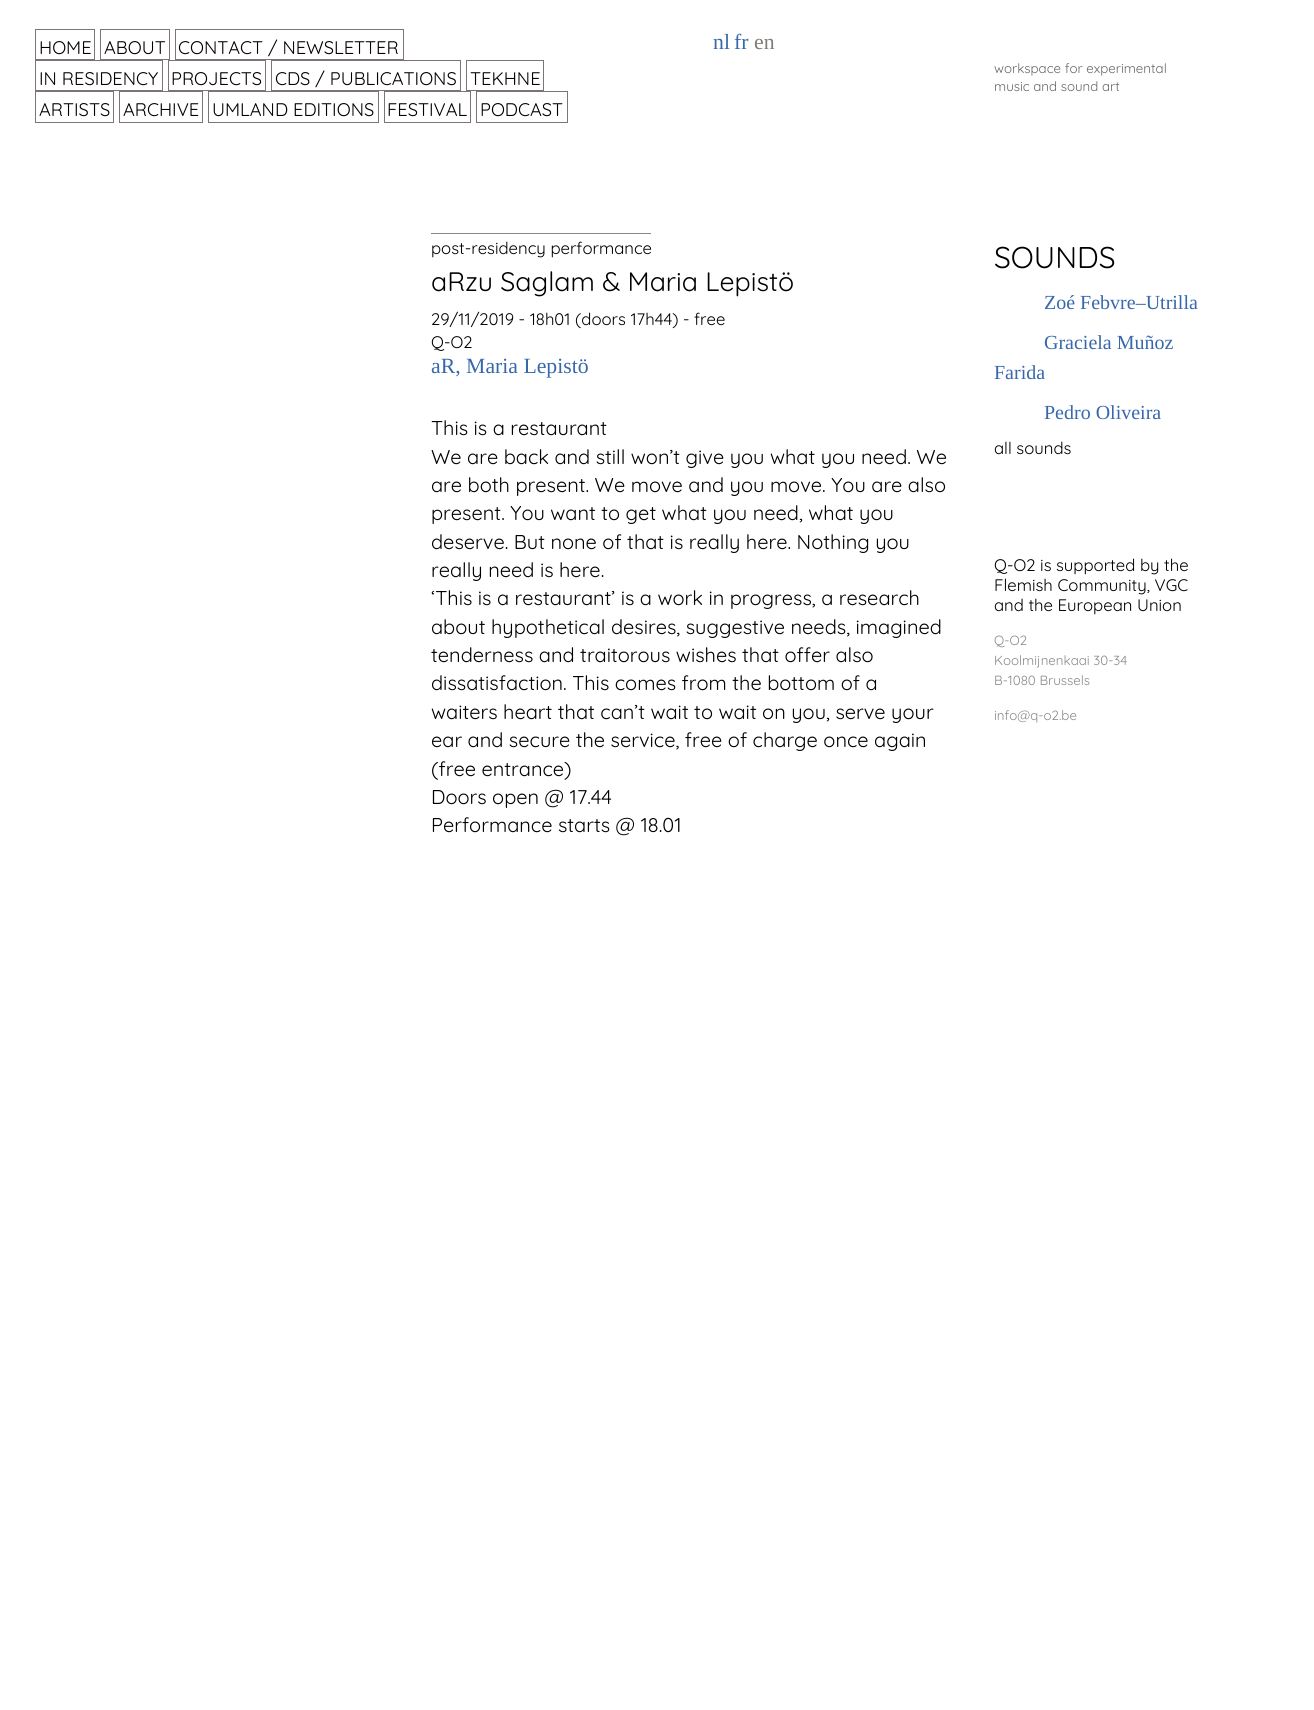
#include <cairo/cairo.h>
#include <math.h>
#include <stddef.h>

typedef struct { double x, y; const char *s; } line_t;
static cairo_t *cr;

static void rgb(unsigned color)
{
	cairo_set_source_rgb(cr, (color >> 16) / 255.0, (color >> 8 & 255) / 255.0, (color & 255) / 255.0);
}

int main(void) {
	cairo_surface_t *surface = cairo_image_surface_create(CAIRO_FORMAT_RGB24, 1314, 1710);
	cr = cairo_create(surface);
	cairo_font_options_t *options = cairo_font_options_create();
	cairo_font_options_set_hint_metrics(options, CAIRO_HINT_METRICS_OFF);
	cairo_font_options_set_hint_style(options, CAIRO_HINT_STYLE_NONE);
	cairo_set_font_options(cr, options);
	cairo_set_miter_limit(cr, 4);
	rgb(0xffffff);
	cairo_paint(cr);
	cairo_rectangle(cr, 35.5, 29.5, 59, 30);
	rgb(0x7d7574);
	cairo_set_line_width(cr, 1);
	cairo_stroke(cr);
	cairo_rectangle(cr, 100.5, 29.5, 69, 30);
	cairo_stroke(cr);
	cairo_rectangle(cr, 175.5, 29.5, 228, 30);
	cairo_stroke(cr);
	cairo_rectangle(cr, 35.5, 60.5, 127, 30);
	cairo_stroke(cr);
	cairo_rectangle(cr, 168.5, 60.5, 97, 30);
	cairo_stroke(cr);
	cairo_rectangle(cr, 271.5, 60.5, 189, 30);
	cairo_stroke(cr);
	cairo_rectangle(cr, 466.5, 60.5, 77, 30);
	cairo_stroke(cr);
	cairo_rectangle(cr, 35.5, 91.5, 78, 31);
	cairo_stroke(cr);
	cairo_rectangle(cr, 119.5, 91.5, 83, 31);
	cairo_stroke(cr);
	cairo_rectangle(cr, 208.5, 91.5, 170, 31);
	cairo_stroke(cr);
	cairo_rectangle(cr, 384.5, 91.5, 86, 31);
	cairo_stroke(cr);
	cairo_rectangle(cr, 476.5, 91.5, 91, 31);
	cairo_stroke(cr);
	rgb(0x888888);
	cairo_rectangle(cr, 431, 233, 220, 1);
	cairo_fill(cr);
	cairo_select_font_face(cr, "Quicksand", CAIRO_FONT_SLANT_NORMAL, CAIRO_FONT_WEIGHT_NORMAL);
	cairo_set_font_size(cr, 18.25);
	rgb(0x000000);
	{
		static const line_t items[] = {
			{39, 54, "HOME"},
			{104, 54, "ABOUT"},
			{178, 54, "CONTACT / NEWSLETTER"},
			{39, 85, "IN RESIDENCY"},
			{171, 85, "PROJECTS"},
			{275, 85, "CDS / PUBLICATIONS"},
			{470, 85, "TEKHNE"},
			{39, 116, "ARTISTS"},
			{123, 116, "ARCHIVE"},
			{212, 116, "UMLAND EDITIONS"},
			{387, 116, "FESTIVAL"},
			{480, 116, "PODCAST"},
		};
		for (size_t i = 0; i < sizeof items / sizeof *items; i++) {
			cairo_move_to(cr, items[i].x, items[i].y);
			cairo_show_text(cr, items[i].s);
		}
	}
	cairo_select_font_face(cr, "Liberation Serif", CAIRO_FONT_SLANT_NORMAL, CAIRO_FONT_WEIGHT_NORMAL);
	cairo_set_font_size(cr, 21.75);
	rgb(0x3768ab);
	cairo_move_to(cr, 713, 49);
	cairo_show_text(cr, "nl");
	cairo_move_to(cr, 734, 49);
	cairo_show_text(cr, "fr");
	rgb(0x827b79);
	cairo_move_to(cr, 754, 49);
	cairo_show_text(cr, "en");
	cairo_select_font_face(cr, "Quicksand", CAIRO_FONT_SLANT_NORMAL, CAIRO_FONT_WEIGHT_NORMAL);
	cairo_set_font_size(cr, 13.3);
	rgb(0x666666);
	cairo_move_to(cr, 994, 73);
	cairo_show_text(cr, "workspace for experimental");
	cairo_move_to(cr, 994, 91);
	cairo_show_text(cr, "music and sound art");
	cairo_set_font_size(cr, 16.7);
	rgb(0x000000);
	cairo_move_to(cr, 431, 254);
	cairo_show_text(cr, "post-residency performance");
	cairo_set_font_size(cr, 26.7);
	cairo_move_to(cr, 431, 291);
	cairo_show_text(cr, "aRzu Saglam & Maria Lepistö");
	cairo_set_font_size(cr, 16.7);
	cairo_move_to(cr, 431, 325);
	cairo_show_text(cr, "29/11/2019 - 18h01 (doors 17h44) - free");
	cairo_move_to(cr, 431, 348);
	cairo_show_text(cr, "Q-O2");
	cairo_select_font_face(cr, "Liberation Serif", CAIRO_FONT_SLANT_NORMAL, CAIRO_FONT_WEIGHT_NORMAL);
	cairo_set_font_size(cr, 21.75);
	rgb(0x3768ab);
	cairo_move_to(cr, 431, 373);
	cairo_show_text(cr, "aR, Maria Lepistö");
	cairo_select_font_face(cr, "Quicksand", CAIRO_FONT_SLANT_NORMAL, CAIRO_FONT_WEIGHT_NORMAL);
	cairo_set_font_size(cr, 20);
	rgb(0x000000);
	{
		static const line_t items[] = {
			{431, 435, "This is a restaurant"},
			{431, 464, "We are back and still won’t give you what you need. We"},
			{431, 492, "are both present. We move and you move. You are also"},
			{431, 520, "present. You want to get what you need, what you"},
			{431, 549, "deserve. But none of that is really here. Nothing you"},
			{431, 577, "really need is here."},
			{431, 605, "‘This is a restaurant’ is a work in progress, a research"},
			{431, 634, "about hypothetical desires, suggestive needs, imagined"},
			{431, 662, "tenderness and traitorous wishes that offer also"},
			{431, 690, "dissatisfaction. This comes from the bottom of a"},
			{431, 719, "waiters heart that can’t wait to wait on you, serve your"},
			{431, 747, "ear and secure the service, free of charge once again"},
			{431, 776, "(free entrance)"},
			{431, 804, "Doors open @ 17.44"},
			{431, 832, "Performance starts @ 18.01"},
		};
		for (size_t i = 0; i < sizeof items / sizeof *items; i++) {
			cairo_move_to(cr, items[i].x, items[i].y);
			cairo_show_text(cr, items[i].s);
		}
	}
	cairo_set_font_size(cr, 30);
	cairo_move_to(cr, 994, 268);
	cairo_show_text(cr, "SOUNDS");
	cairo_select_font_face(cr, "Liberation Serif", CAIRO_FONT_SLANT_NORMAL, CAIRO_FONT_WEIGHT_NORMAL);
	cairo_set_font_size(cr, 20);
	rgb(0x3768ab);
	{
		static const line_t items[] = {
			{1044, 309, "Zoé Febvre–Utrilla"},
			{1044, 349, "Graciela Muñoz"},
			{994, 379, "Farida"},
			{1044, 419, "Pedro Oliveira"},
		};
		for (size_t i = 0; i < sizeof items / sizeof *items; i++) {
			cairo_move_to(cr, items[i].x, items[i].y);
			cairo_show_text(cr, items[i].s);
		}
	}
	cairo_select_font_face(cr, "Quicksand", CAIRO_FONT_SLANT_NORMAL, CAIRO_FONT_WEIGHT_NORMAL);
	cairo_set_font_size(cr, 16.7);
	rgb(0x000000);
	{
		static const line_t items[] = {
			{994, 454, "all sounds"},
			{994, 571, "Q-O2 is supported by the"},
			{994, 591, "Flemish Community, VGC"},
			{994, 611, "and the European Union"},
		};
		for (size_t i = 0; i < sizeof items / sizeof *items; i++) {
			cairo_move_to(cr, items[i].x, items[i].y);
			cairo_show_text(cr, items[i].s);
		}
	}
	cairo_set_font_size(cr, 13.3);
	rgb(0x888888);
	{
		static const line_t items[] = {
			{994, 645, "Q-O2"},
			{994, 665, "Koolmijnenkaai 30-34"},
			{994, 685, "B-1080 Brussels"},
			{994, 720, "info@q-o2.be"},
		};
		for (size_t i = 0; i < sizeof items / sizeof *items; i++) {
			cairo_move_to(cr, items[i].x, items[i].y);
			cairo_show_text(cr, items[i].s);
		}
	}
	cairo_surface_write_to_png(surface, "page.png");
	cairo_font_options_destroy(options);
	cairo_destroy(cr);
	cairo_surface_destroy(surface);
	return 0;
}
